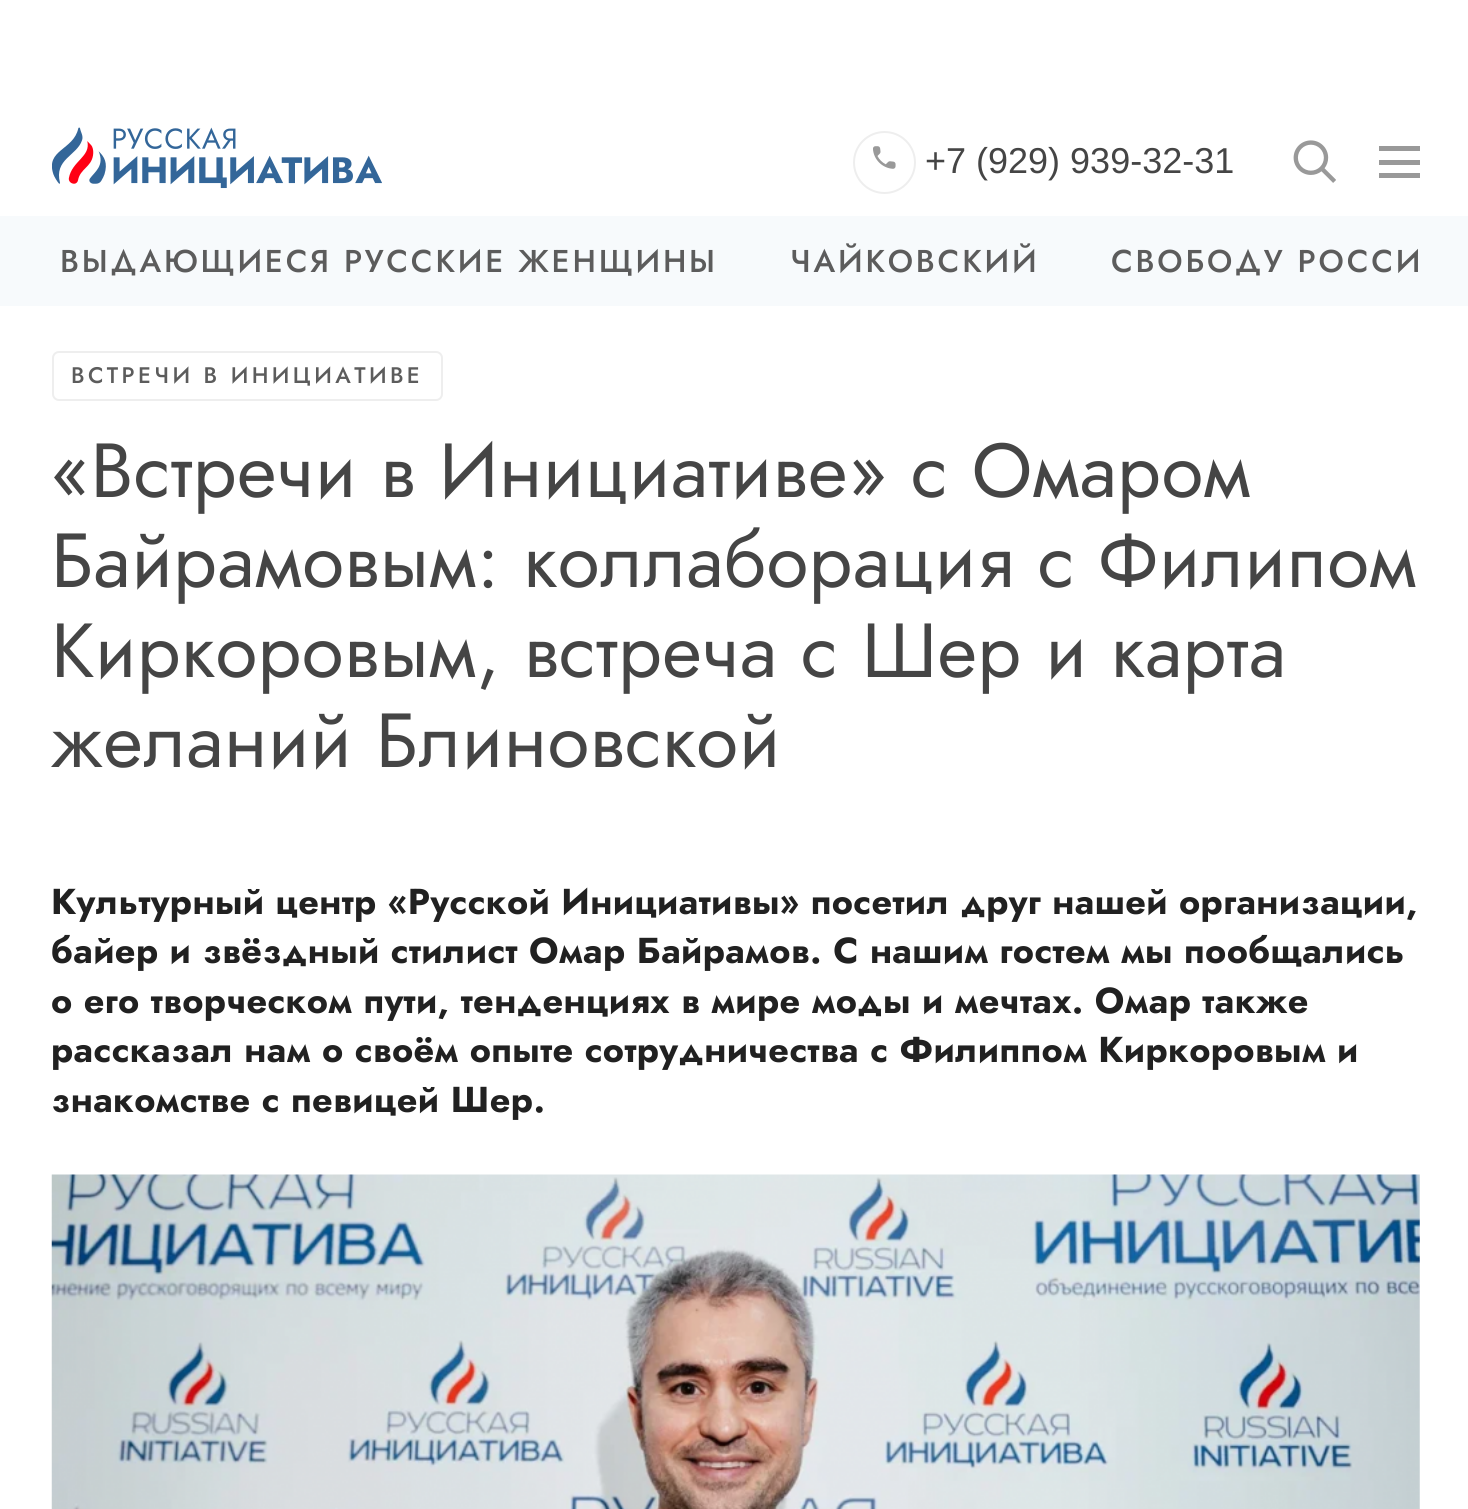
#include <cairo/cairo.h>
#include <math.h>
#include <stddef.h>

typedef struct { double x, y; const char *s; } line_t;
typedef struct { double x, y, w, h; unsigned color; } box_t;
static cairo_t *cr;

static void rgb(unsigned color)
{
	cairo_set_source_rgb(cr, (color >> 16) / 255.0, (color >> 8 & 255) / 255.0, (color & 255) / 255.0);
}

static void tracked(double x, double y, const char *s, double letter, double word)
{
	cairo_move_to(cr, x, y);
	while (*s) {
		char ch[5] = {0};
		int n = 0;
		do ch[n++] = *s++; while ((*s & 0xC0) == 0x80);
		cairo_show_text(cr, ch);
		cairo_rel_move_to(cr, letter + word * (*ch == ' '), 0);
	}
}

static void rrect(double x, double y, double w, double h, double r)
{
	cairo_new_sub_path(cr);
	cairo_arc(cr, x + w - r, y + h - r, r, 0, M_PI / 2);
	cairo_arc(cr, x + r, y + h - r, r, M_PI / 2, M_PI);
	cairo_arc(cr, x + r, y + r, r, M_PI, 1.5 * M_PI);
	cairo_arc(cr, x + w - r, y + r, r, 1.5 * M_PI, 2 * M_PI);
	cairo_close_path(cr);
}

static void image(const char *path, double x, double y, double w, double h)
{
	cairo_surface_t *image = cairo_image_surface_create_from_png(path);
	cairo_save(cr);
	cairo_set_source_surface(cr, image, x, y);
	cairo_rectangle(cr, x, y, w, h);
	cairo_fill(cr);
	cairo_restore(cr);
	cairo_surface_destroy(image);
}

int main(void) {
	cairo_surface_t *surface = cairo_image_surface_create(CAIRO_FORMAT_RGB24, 1468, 1509);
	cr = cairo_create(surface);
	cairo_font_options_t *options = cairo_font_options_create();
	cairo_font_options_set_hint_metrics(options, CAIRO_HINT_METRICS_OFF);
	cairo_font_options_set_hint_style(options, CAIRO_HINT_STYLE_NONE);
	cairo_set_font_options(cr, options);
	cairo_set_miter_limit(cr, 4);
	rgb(0xffffff);
	cairo_paint(cr);
	image("img/1.png", 52, 127, 330, 62);
	cairo_arc(cr, 884.5, 162.5, 30.5, 0, 2 * M_PI);
	rgb(0xeeeeee);
	cairo_stroke(cr);
	image("img/2.png", 873, 146, 23, 23);
	image("img/3.png", 1293, 140, 43, 43);
	{
		static const box_t items[] = {
			{1379, 146, 41, 5, 0x999999},
			{1379, 173, 41, 5, 0x999999},
			{1379, 160, 41, 5, 0x999999},
			{0, 216, 1468, 90, 0xf7fafc},
		};
		for (size_t i = 0; i < sizeof items / sizeof *items; i++) {
			rgb(items[i].color);
			cairo_rectangle(cr, items[i].x, items[i].y, items[i].w, items[i].h);
			cairo_fill(cr);
		}
	}
	rrect(53, 352, 389, 48, 6);
	rgb(0xeeeeee);
	cairo_stroke(cr);
	image("img/4.png", 51, 1174, 1369, 335);
	cairo_select_font_face(cr, "Liberation Sans", CAIRO_FONT_SLANT_NORMAL, CAIRO_FONT_WEIGHT_NORMAL);
	cairo_set_font_size(cr, 36);
	rgb(0x454545);
	cairo_move_to(cr, 925, 173);
	cairo_show_text(cr, "+7 (929) 939-32-31");
	cairo_select_font_face(cr, "Jost Medium", CAIRO_FONT_SLANT_NORMAL, CAIRO_FONT_WEIGHT_NORMAL);
	cairo_set_font_size(cr, 31.5);
	rgb(0x5c5c5c);
	{
		static const line_t items[] = {
			{60, 272, "ВЫДАЮЩИЕСЯ РУССКИЕ ЖЕНЩИНЫ"},
			{790, 272, "ЧАЙКОВСКИЙ"},
			{1111, 272, "СВОБОДУ РОССИ"},
		};
		for (size_t i = 0; i < sizeof items / sizeof *items; i++) {
			tracked(items[i].x, items[i].y, items[i].s, 2.8, 0);
		}
	}
	cairo_set_font_size(cr, 22.5);
	tracked(71, 383, "ВСТРЕЧИ В ИНИЦИАТИВЕ", 3.4, 0);
	cairo_select_font_face(cr, "Jost", CAIRO_FONT_SLANT_NORMAL, CAIRO_FONT_WEIGHT_NORMAL);
	cairo_set_font_size(cr, 76.5);
	rgb(0x454545);
	{
		static const line_t items[] = {
			{51, 497, "«Встречи в Инициативе» с Омаром"},
			{51, 587, "Байрамовым: коллаборация с Филипом"},
			{51, 677, "Киркоровым, встреча с Шер и карта"},
			{51, 767, "желаний Блиновской"},
		};
		for (size_t i = 0; i < sizeof items / sizeof *items; i++) {
			tracked(items[i].x, items[i].y, items[i].s, 0.55, 0);
		}
	}
	cairo_select_font_face(cr, "Jost", CAIRO_FONT_SLANT_NORMAL, CAIRO_FONT_WEIGHT_BOLD);
	cairo_set_font_size(cr, 36);
	rgb(0x212121);
	{
		static const line_t items[] = {
			{51, 914, "Культурный центр «Русской Инициативы» посетил друг нашей организации,"},
			{51, 963, "байер и звёздный стилист Омар Байрамов. С нашим гостем мы пообщались"},
			{51, 1013, "о его творческом пути, тенденциях в мире моды и мечтах. Омар также"},
			{51, 1062, "рассказал нам о своём опыте сотрудничества с Филиппом Киркоровым и"},
			{51, 1112, "знакомстве с певицей Шер."},
		};
		for (size_t i = 0; i < sizeof items / sizeof *items; i++) {
			tracked(items[i].x, items[i].y, items[i].s, 0.35, 0);
		}
	}
	cairo_surface_write_to_png(surface, "page.png");
	cairo_font_options_destroy(options);
	cairo_destroy(cr);
	cairo_surface_destroy(surface);
	return 0;
}
